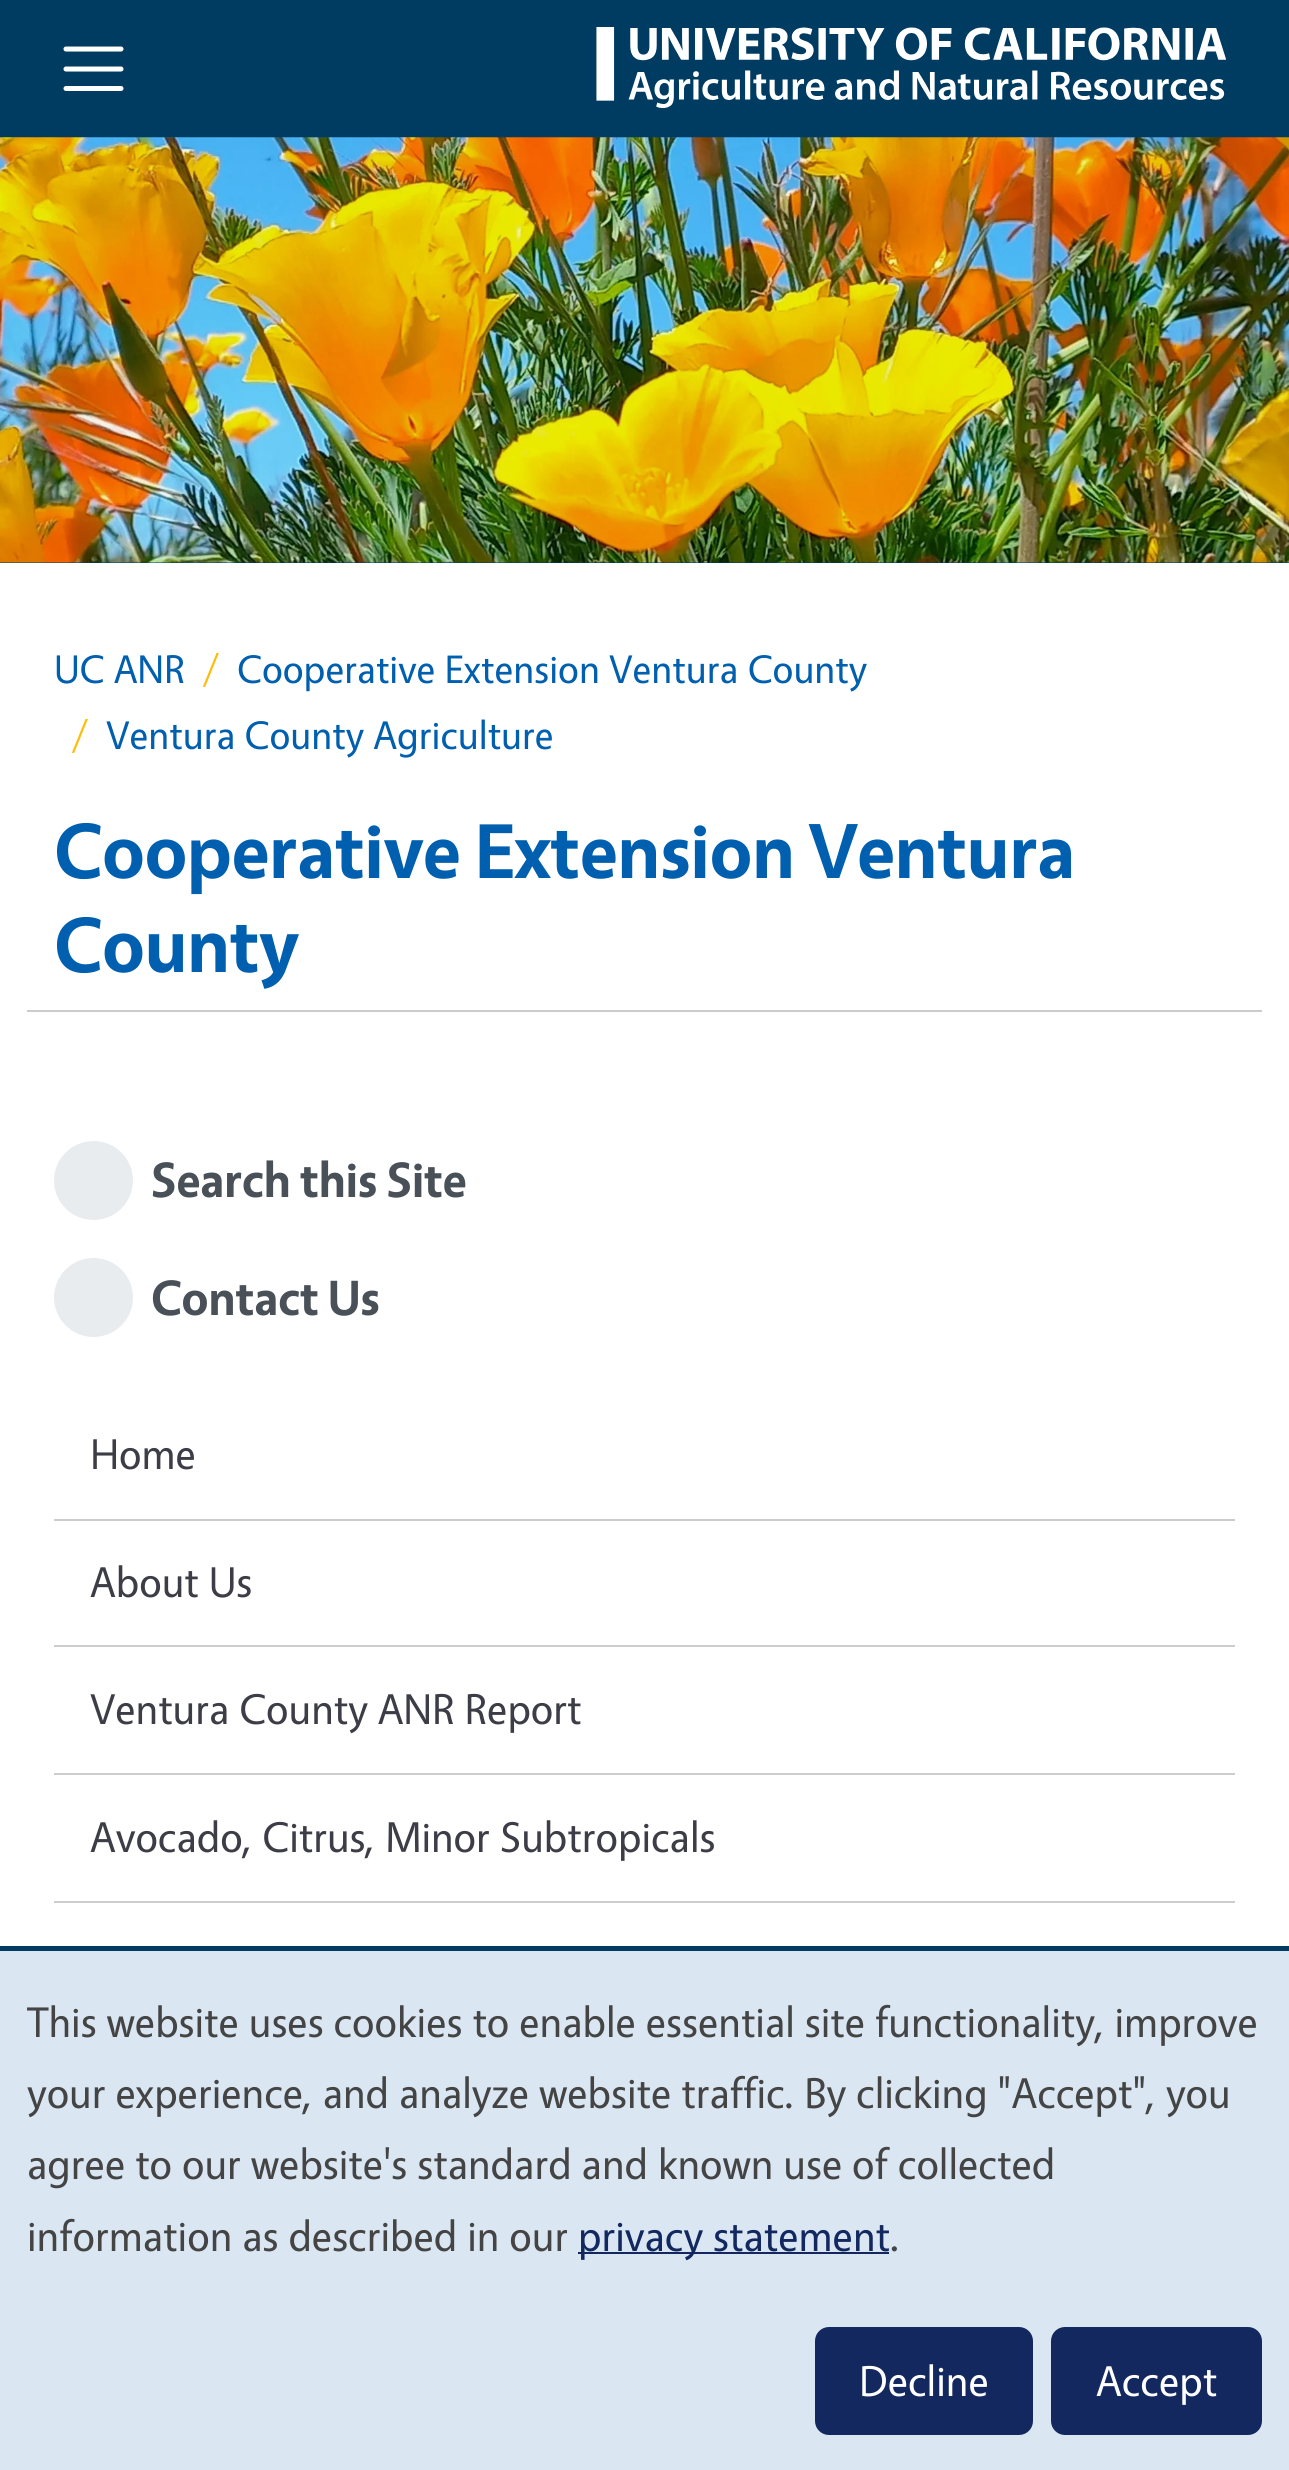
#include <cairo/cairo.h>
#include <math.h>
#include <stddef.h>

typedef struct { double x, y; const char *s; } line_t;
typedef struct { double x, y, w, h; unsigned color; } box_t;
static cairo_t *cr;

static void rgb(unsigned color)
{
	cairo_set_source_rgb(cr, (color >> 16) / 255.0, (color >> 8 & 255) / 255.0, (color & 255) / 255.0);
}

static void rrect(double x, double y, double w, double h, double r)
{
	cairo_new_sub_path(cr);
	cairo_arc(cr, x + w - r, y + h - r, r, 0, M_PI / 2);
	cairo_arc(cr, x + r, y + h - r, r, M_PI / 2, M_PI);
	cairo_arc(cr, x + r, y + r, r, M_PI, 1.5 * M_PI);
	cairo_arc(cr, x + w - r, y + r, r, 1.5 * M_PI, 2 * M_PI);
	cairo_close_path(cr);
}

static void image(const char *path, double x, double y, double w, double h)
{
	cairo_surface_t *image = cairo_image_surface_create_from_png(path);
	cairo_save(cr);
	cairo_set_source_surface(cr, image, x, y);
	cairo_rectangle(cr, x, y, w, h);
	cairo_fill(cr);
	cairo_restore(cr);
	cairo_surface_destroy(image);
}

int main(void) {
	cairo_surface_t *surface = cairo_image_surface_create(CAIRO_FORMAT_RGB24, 1289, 2470);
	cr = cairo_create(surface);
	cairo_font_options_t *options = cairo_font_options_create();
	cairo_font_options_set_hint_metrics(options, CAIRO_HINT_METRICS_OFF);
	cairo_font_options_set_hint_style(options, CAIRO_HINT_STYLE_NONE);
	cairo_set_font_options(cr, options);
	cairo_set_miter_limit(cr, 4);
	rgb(0xffffff);
	cairo_paint(cr);
	rgb(0x003c61);
	cairo_rectangle(cr, 0, 0, 1289, 563);
	cairo_fill(cr);
	cairo_new_path(cr);
	cairo_move_to(cr, 66, 49);
	cairo_line_to(cr, 121, 49);
	cairo_move_to(cr, 66, 69);
	cairo_line_to(cr, 121, 69);
	cairo_move_to(cr, 66, 88.5);
	cairo_line_to(cr, 121, 88.5);
	rgb(0xffffff);
	cairo_set_line_width(cr, 5);
	cairo_set_line_cap(cr, CAIRO_LINE_CAP_ROUND);
	cairo_stroke(cr);
	image("img/1.png", 596, 27, 630, 81);
	image("img/2.png", 0, 137, 1289, 426);
	rgb(0xcccccc);
	cairo_rectangle(cr, 27, 1010, 1235, 2);
	cairo_fill(cr);
	rgb(0xe9ecef);
	cairo_arc(cr, 93.5, 1180.5, 39.5, 0, 2 * M_PI);
	cairo_fill(cr);
	cairo_arc(cr, 93.5, 1297.5, 39.5, 0, 2 * M_PI);
	cairo_fill(cr);
	{
		static const box_t items[] = {
			{54, 1519, 1181, 2, 0xcccccc},
			{54, 1645, 1181, 2, 0xcccccc},
			{54, 1773, 1181, 2, 0xcccccc},
			{54, 1901, 1181, 2, 0xcccccc},
			{0, 1951, 1289, 519, 0xdae7f3},
			{0, 1946, 1289, 5, 0x003c61},
			{578, 2252, 311, 2, 0x12285f},
		};
		for (size_t i = 0; i < sizeof items / sizeof *items; i++) {
			rgb(items[i].color);
			cairo_rectangle(cr, items[i].x, items[i].y, items[i].w, items[i].h);
			cairo_fill(cr);
		}
	}
	rrect(818.5, 2330.5, 211, 101, 10.5);
	cairo_fill_preserve(cr);
	cairo_set_line_width(cr, 7);
	cairo_set_line_cap(cr, CAIRO_LINE_CAP_BUTT);
	cairo_stroke(cr);
	rrect(1054.5, 2330.5, 204, 101, 10.5);
	cairo_fill_preserve(cr);
	cairo_stroke(cr);
	cairo_select_font_face(cr, "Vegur", CAIRO_FONT_SLANT_NORMAL, CAIRO_FONT_WEIGHT_NORMAL);
	cairo_set_font_size(cr, 40.1);
	rgb(0x005fae);
	cairo_move_to(cr, 54, 683);
	cairo_show_text(cr, "UC ANR");
	rgb(0xfdbd10);
	cairo_move_to(cr, 203, 683);
	cairo_show_text(cr, "/");
	rgb(0x005fae);
	cairo_move_to(cr, 237, 683);
	cairo_show_text(cr, "Cooperative Extension Ventura County");
	rgb(0xfdbd10);
	cairo_move_to(cr, 72, 749);
	cairo_show_text(cr, "/");
	rgb(0x005fae);
	cairo_move_to(cr, 106, 749);
	cairo_show_text(cr, "Ventura County Agriculture");
	cairo_select_font_face(cr, "Vegur", CAIRO_FONT_SLANT_NORMAL, CAIRO_FONT_WEIGHT_BOLD);
	cairo_set_font_size(cr, 78.4);
	cairo_move_to(cr, 54, 878);
	cairo_show_text(cr, "Cooperative Extension Ventura");
	cairo_move_to(cr, 54, 972);
	cairo_show_text(cr, "County");
	cairo_set_font_size(cr, 49.75);
	rgb(0x495057);
	cairo_move_to(cr, 151, 1197);
	cairo_show_text(cr, "Search this Site");
	cairo_move_to(cr, 151, 1315);
	cairo_show_text(cr, "Contact Us");
	cairo_select_font_face(cr, "Vegur", CAIRO_FONT_SLANT_NORMAL, CAIRO_FONT_WEIGHT_NORMAL);
	cairo_set_font_size(cr, 43.2);
	rgb(0x3d3d47);
	{
		static const line_t items[] = {
			{90, 1469, "Home"},
			{90, 1597, "About Us"},
			{90, 1724, "Ventura County ANR Report"},
			{90, 1852, "Avocado, Citrus, Minor Subtropicals"},
		};
		for (size_t i = 0; i < sizeof items / sizeof *items; i++) {
			cairo_move_to(cr, items[i].x, items[i].y);
			cairo_show_text(cr, items[i].s);
		}
	}
	rgb(0x444444);
	{
		static const line_t items[] = {
			{27, 2037, "This website uses cookies to enable essential site functionality, improve"},
			{27, 2108, "your experience, and analyze website traffic. By clicking \"Accept\", you"},
			{27, 2179, "agree to our website's standard and known use of collected"},
			{27, 2251, "information as described in our"},
		};
		for (size_t i = 0; i < sizeof items / sizeof *items; i++) {
			cairo_move_to(cr, items[i].x, items[i].y);
			cairo_show_text(cr, items[i].s);
		}
	}
	rgb(0x12285f);
	cairo_move_to(cr, 578, 2251);
	cairo_show_text(cr, "privacy statement");
	rgb(0x444444);
	cairo_move_to(cr, 890, 2251);
	cairo_show_text(cr, ".");
	rgb(0xffffff);
	cairo_move_to(cr, 859, 2396);
	cairo_show_text(cr, "Decline");
	cairo_move_to(cr, 1096, 2396);
	cairo_show_text(cr, "Accept");
	cairo_surface_write_to_png(surface, "page.png");
	cairo_font_options_destroy(options);
	cairo_destroy(cr);
	cairo_surface_destroy(surface);
	return 0;
}
